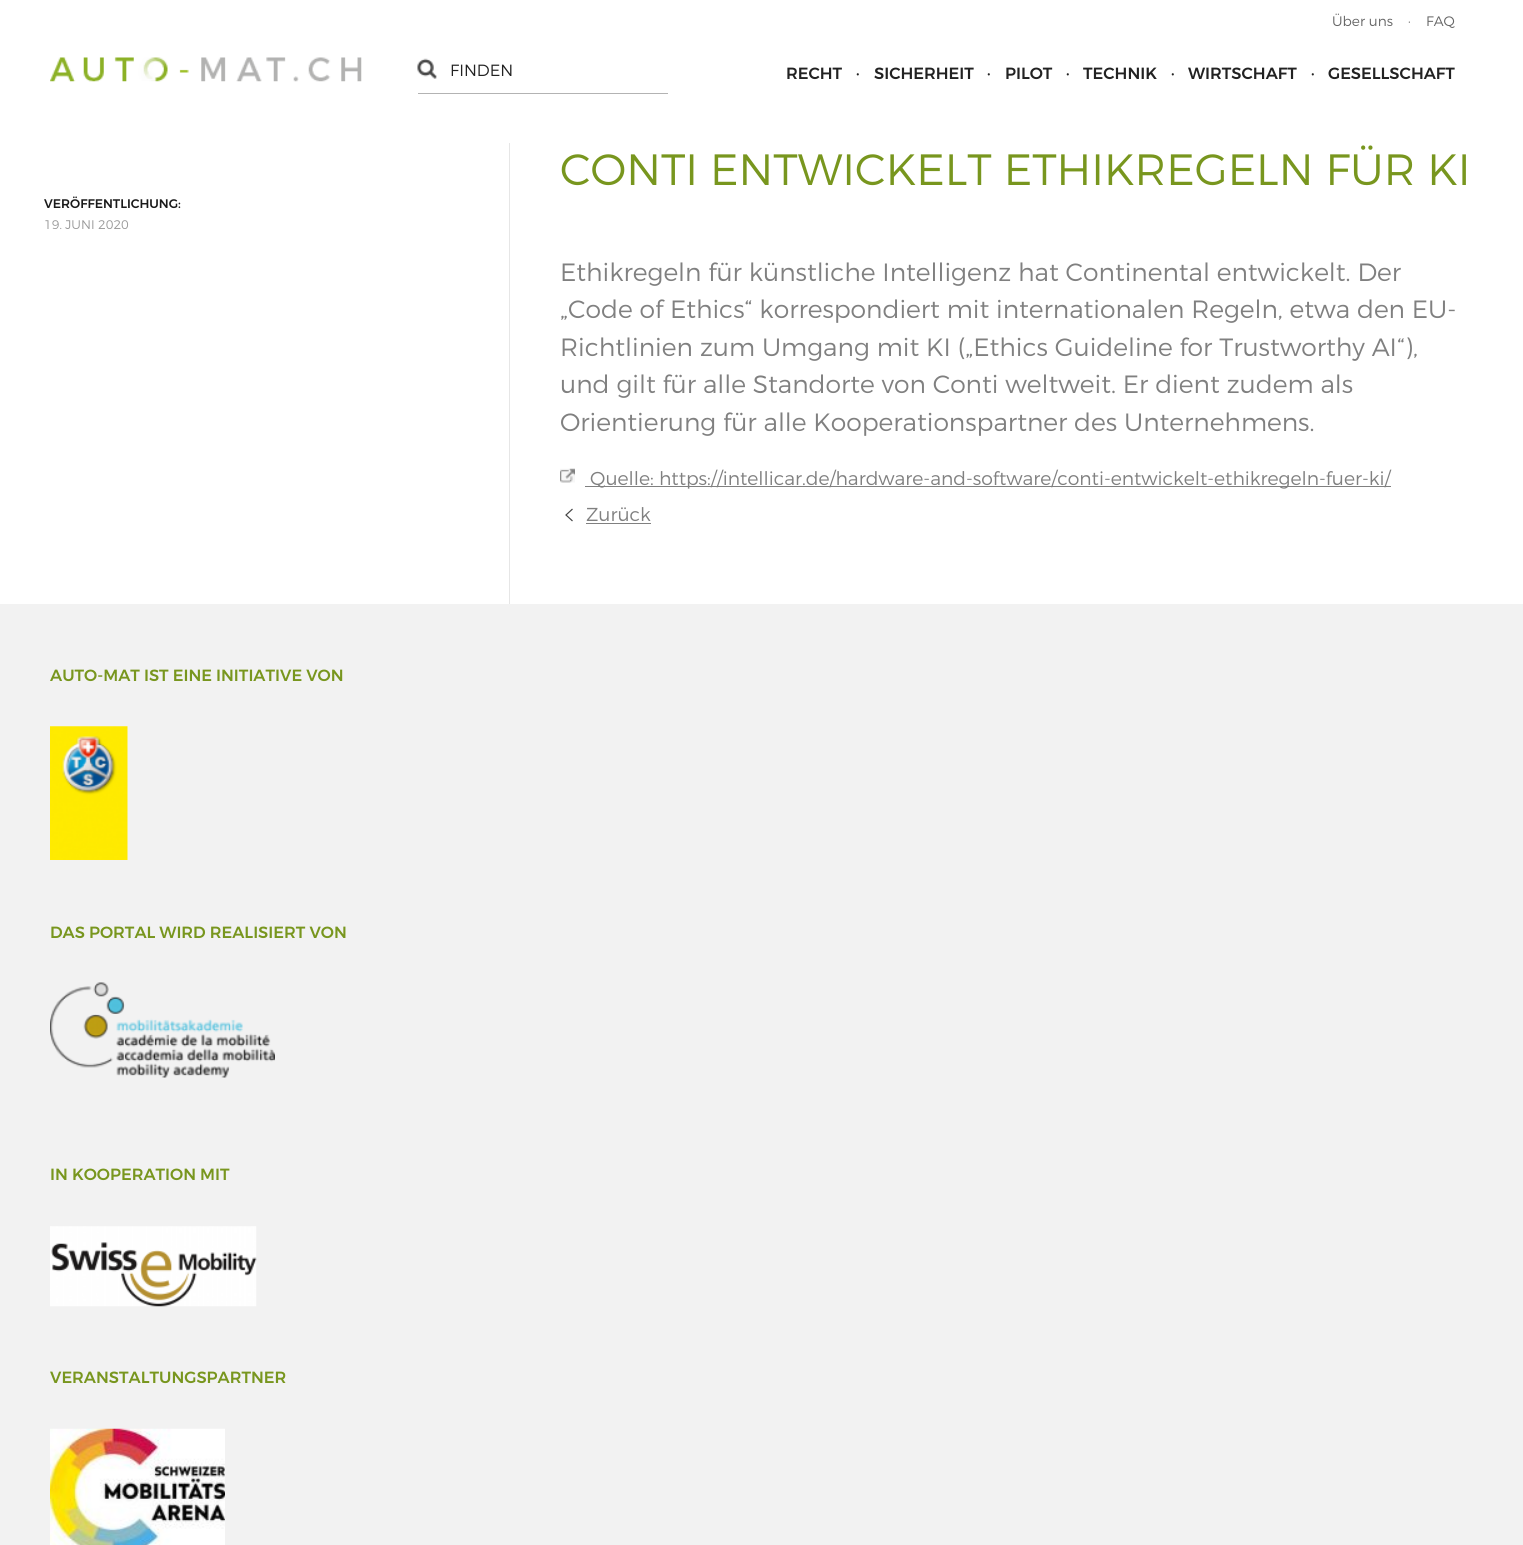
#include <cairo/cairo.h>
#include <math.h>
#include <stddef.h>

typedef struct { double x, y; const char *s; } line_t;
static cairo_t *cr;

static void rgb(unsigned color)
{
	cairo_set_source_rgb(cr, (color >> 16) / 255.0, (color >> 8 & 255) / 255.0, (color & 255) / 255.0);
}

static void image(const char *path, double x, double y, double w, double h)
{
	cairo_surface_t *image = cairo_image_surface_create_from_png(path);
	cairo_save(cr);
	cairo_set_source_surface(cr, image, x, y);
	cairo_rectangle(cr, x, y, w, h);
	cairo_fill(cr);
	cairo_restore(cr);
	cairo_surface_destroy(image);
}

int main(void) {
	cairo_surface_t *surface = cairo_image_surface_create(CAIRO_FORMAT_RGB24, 1523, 1545);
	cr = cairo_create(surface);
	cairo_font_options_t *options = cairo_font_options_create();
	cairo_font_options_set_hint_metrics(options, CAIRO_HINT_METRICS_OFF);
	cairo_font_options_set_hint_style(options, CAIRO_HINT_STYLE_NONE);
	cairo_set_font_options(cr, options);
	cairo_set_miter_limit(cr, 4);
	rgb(0xf2f2f2);
	cairo_paint(cr);
	rgb(0xffffff);
	cairo_rectangle(cr, 0, 0, 1523, 604);
	cairo_fill(cr);
	image("img/1.png", 50, 57, 312, 25);
	image("img/2.png", 417, 58, 20, 21);
	rgb(0xb3b3b3);
	cairo_rectangle(cr, 418, 93, 250, 1);
	cairo_fill(cr);
	rgb(0xe6e6e6);
	cairo_rectangle(cr, 509, 143, 1, 461);
	cairo_fill(cr);
	image("img/3.png", 560, 468, 15, 15);
	rgb(0x808080);
	cairo_rectangle(cr, 585, 486, 806, 1);
	cairo_fill(cr);
	cairo_new_path(cr);
	cairo_move_to(cr, 572.5, 509);
	cairo_line_to(cr, 566, 515);
	cairo_line_to(cr, 572.5, 521);
	rgb(0x444444);
	cairo_set_line_width(cr, 1.2);
	cairo_stroke(cr);
	rgb(0x808080);
	cairo_rectangle(cr, 586, 523, 65, 1);
	cairo_fill(cr);
	image("img/4.png", 50, 726, 78, 134);
	image("img/5.png", 50, 982, 225, 96);
	image("img/6.png", 50, 1226, 207, 81);
	image("img/7.png", 50, 1428, 175, 117);
	cairo_select_font_face(cr, "Montserrat Light", CAIRO_FONT_SLANT_NORMAL, CAIRO_FONT_WEIGHT_NORMAL);
	cairo_set_font_size(cr, 13.75);
	rgb(0x666666);
	{
		static const line_t items[] = {
			{1332, 26, "Über uns"},
			{1408, 26, "·"},
			{1426, 26, "FAQ"},
		};
		for (size_t i = 0; i < sizeof items / sizeof *items; i++) {
			cairo_move_to(cr, items[i].x, items[i].y);
			cairo_show_text(cr, items[i].s);
		}
	}
	cairo_set_font_size(cr, 16.25);
	rgb(0x222222);
	cairo_move_to(cr, 450, 76);
	cairo_show_text(cr, "FINDEN");
	cairo_select_font_face(cr, "Montserrat Medium", CAIRO_FONT_SLANT_NORMAL, CAIRO_FONT_WEIGHT_NORMAL);
	{
		static const line_t items[] = {
			{786, 79, "RECHT"},
			{856, 79, "·"},
			{874, 79, "SICHERHEIT"},
			{987, 79, "·"},
			{1005, 79, "PILOT"},
			{1066, 79, "·"},
			{1083, 79, "TECHNIK"},
			{1171, 79, "·"},
			{1188, 79, "WIRTSCHAFT"},
			{1311, 79, "·"},
			{1328, 79, "GESELLSCHAFT"},
		};
		for (size_t i = 0; i < sizeof items / sizeof *items; i++) {
			cairo_move_to(cr, items[i].x, items[i].y);
			cairo_show_text(cr, items[i].s);
		}
	}
	cairo_set_font_size(cr, 12.5);
	rgb(0x1a1a1a);
	cairo_move_to(cr, 44, 208);
	cairo_show_text(cr, "VERÖFFENTLICHUNG:");
	cairo_select_font_face(cr, "Montserrat Light", CAIRO_FONT_SLANT_NORMAL, CAIRO_FONT_WEIGHT_NORMAL);
	rgb(0x999999);
	cairo_move_to(cr, 44, 229);
	cairo_show_text(cr, "19. JUNI 2020");
	cairo_set_font_size(cr, 43.75);
	rgb(0x78961e);
	cairo_move_to(cr, 560, 185);
	cairo_show_text(cr, "CONTI ENTWICKELT ETHIKREGELN FÜR KI");
	cairo_set_font_size(cr, 25);
	rgb(0x808080);
	{
		static const line_t items[] = {
			{560, 281, "Ethikregeln für künstliche Intelligenz hat Continental entwickelt. Der"},
			{560, 318, "„Code of Ethics“ korrespondiert mit internationalen Regeln, etwa den EU-"},
			{560, 356, "Richtlinien zum Umgang mit KI („Ethics Guideline for Trustworthy AI“),"},
			{560, 393, "und gilt für alle Standorte von Conti weltweit. Er dient zudem als"},
			{560, 431, "Orientierung für alle Kooperationspartner des Unternehmens."},
		};
		for (size_t i = 0; i < sizeof items / sizeof *items; i++) {
			cairo_move_to(cr, items[i].x, items[i].y);
			cairo_show_text(cr, items[i].s);
		}
	}
	cairo_set_font_size(cr, 18.75);
	cairo_move_to(cr, 590, 485);
	cairo_show_text(cr, "Quelle: https://intellicar.de/hardware-and-software/conti-entwickelt-ethikregeln-fuer-ki/");
	cairo_move_to(cr, 586, 521);
	cairo_show_text(cr, "Zurück");
	cairo_select_font_face(cr, "Montserrat Medium", CAIRO_FONT_SLANT_NORMAL, CAIRO_FONT_WEIGHT_NORMAL);
	cairo_set_font_size(cr, 16.25);
	rgb(0x78961e);
	{
		static const line_t items[] = {
			{50, 681, "AUTO-MAT IST EINE INITIATIVE VON"},
			{50, 938, "DAS PORTAL WIRD REALISIERT VON"},
			{50, 1180, "IN KOOPERATION MIT"},
			{50, 1383, "VERANSTALTUNGSPARTNER"},
		};
		for (size_t i = 0; i < sizeof items / sizeof *items; i++) {
			cairo_move_to(cr, items[i].x, items[i].y);
			cairo_show_text(cr, items[i].s);
		}
	}
	cairo_surface_write_to_png(surface, "page.png");
	cairo_font_options_destroy(options);
	cairo_destroy(cr);
	cairo_surface_destroy(surface);
	return 0;
}
